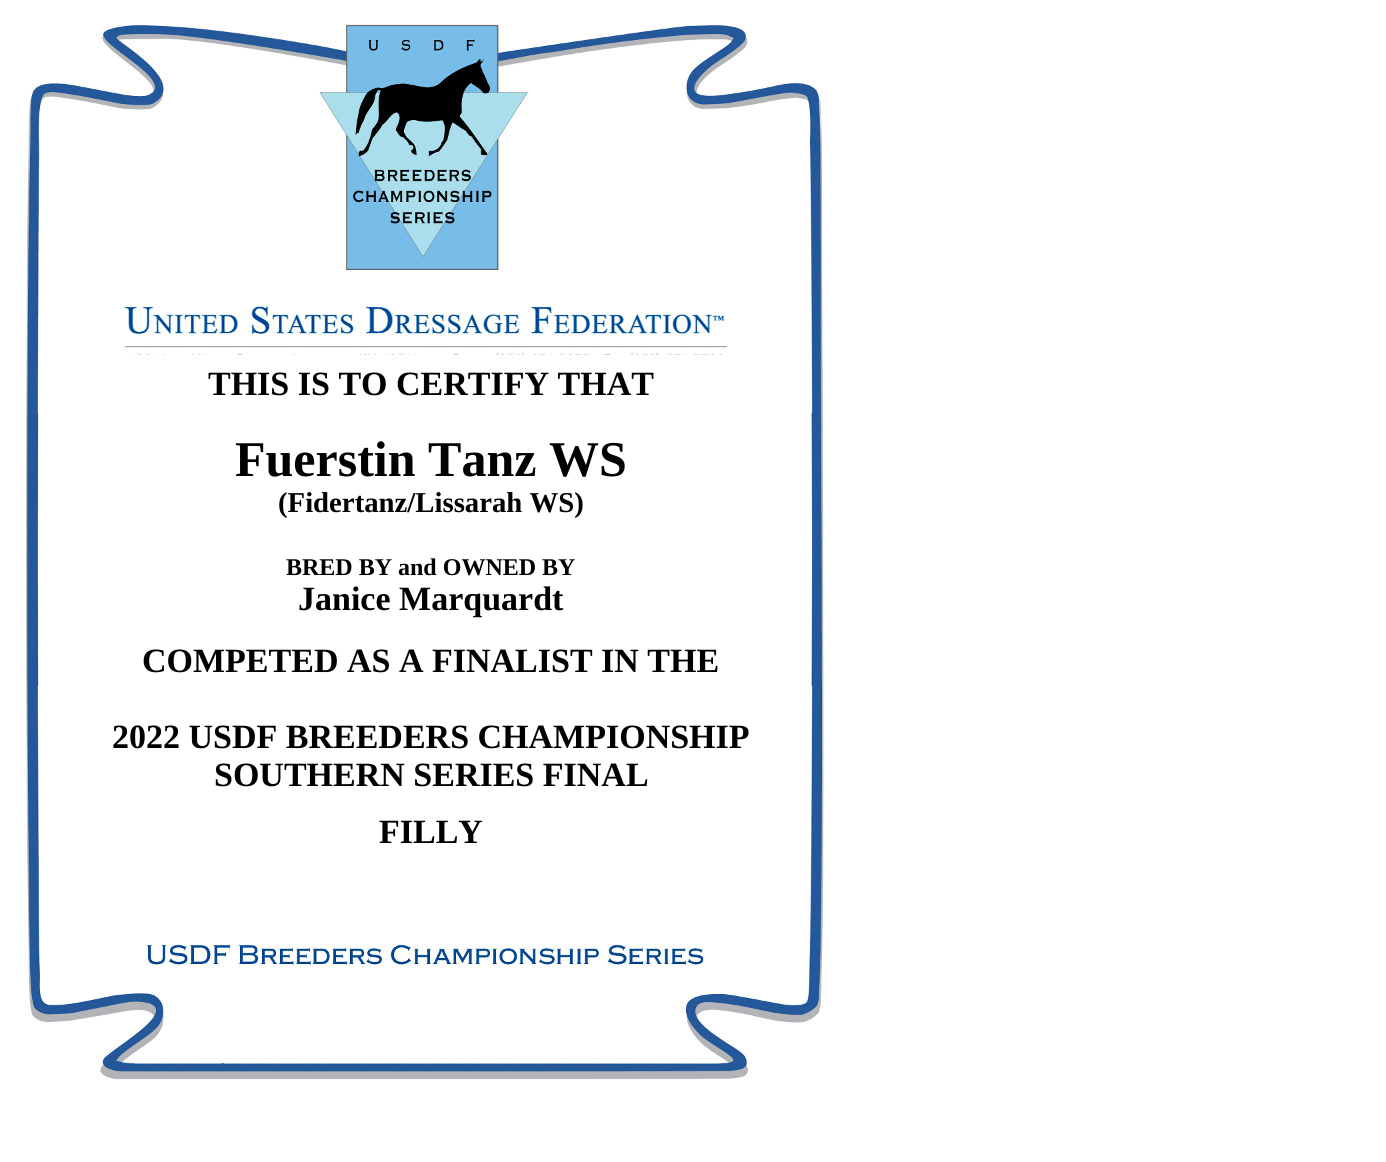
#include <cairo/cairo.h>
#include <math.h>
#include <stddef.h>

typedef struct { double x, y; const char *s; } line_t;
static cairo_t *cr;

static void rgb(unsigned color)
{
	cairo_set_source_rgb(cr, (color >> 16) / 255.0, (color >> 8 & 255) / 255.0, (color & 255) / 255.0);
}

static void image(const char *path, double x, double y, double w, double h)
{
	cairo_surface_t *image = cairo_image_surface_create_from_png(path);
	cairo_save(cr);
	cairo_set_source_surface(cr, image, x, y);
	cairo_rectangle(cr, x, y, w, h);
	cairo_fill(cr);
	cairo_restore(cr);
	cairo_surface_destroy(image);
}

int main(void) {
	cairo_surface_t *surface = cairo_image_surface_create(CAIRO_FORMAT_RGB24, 1386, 1162);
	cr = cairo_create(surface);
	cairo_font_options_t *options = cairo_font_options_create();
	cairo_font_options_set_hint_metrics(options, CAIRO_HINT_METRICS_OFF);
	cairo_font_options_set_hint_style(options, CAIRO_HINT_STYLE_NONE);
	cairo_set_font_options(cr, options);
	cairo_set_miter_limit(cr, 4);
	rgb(0xffffff);
	cairo_paint(cr);
	image("img/1.png", 24, 24, 800, 1056);
	cairo_select_font_face(cr, "Liberation Serif", CAIRO_FONT_SLANT_NORMAL, CAIRO_FONT_WEIGHT_BOLD);
	cairo_set_font_size(cr, 34);
	rgb(0x000000);
	cairo_move_to(cr, 208, 395);
	cairo_show_text(cr, "THIS IS TO CERTIFY THAT");
	cairo_set_font_size(cr, 50);
	cairo_move_to(cr, 235, 476);
	cairo_show_text(cr, "Fuerstin Tanz WS");
	cairo_set_font_size(cr, 28.75);
	cairo_move_to(cr, 278, 512);
	cairo_show_text(cr, "(Fidertanz/Lissarah WS)");
	cairo_set_font_size(cr, 24);
	cairo_move_to(cr, 286, 575);
	cairo_show_text(cr, "BRED BY and OWNED BY");
	cairo_set_font_size(cr, 34);
	{
		static const line_t items[] = {
			{298, 610, "Janice Marquardt"},
			{142, 672, "COMPETED AS A FINALIST IN THE"},
			{112, 748, "2022 USDF BREEDERS CHAMPIONSHIP"},
			{214, 786, "SOUTHERN SERIES FINAL"},
			{379, 843, "FILLY"},
		};
		for (size_t i = 0; i < sizeof items / sizeof *items; i++) {
			cairo_move_to(cr, items[i].x, items[i].y);
			cairo_show_text(cr, items[i].s);
		}
	}
	cairo_surface_write_to_png(surface, "page.png");
	cairo_font_options_destroy(options);
	cairo_destroy(cr);
	cairo_surface_destroy(surface);
	return 0;
}
